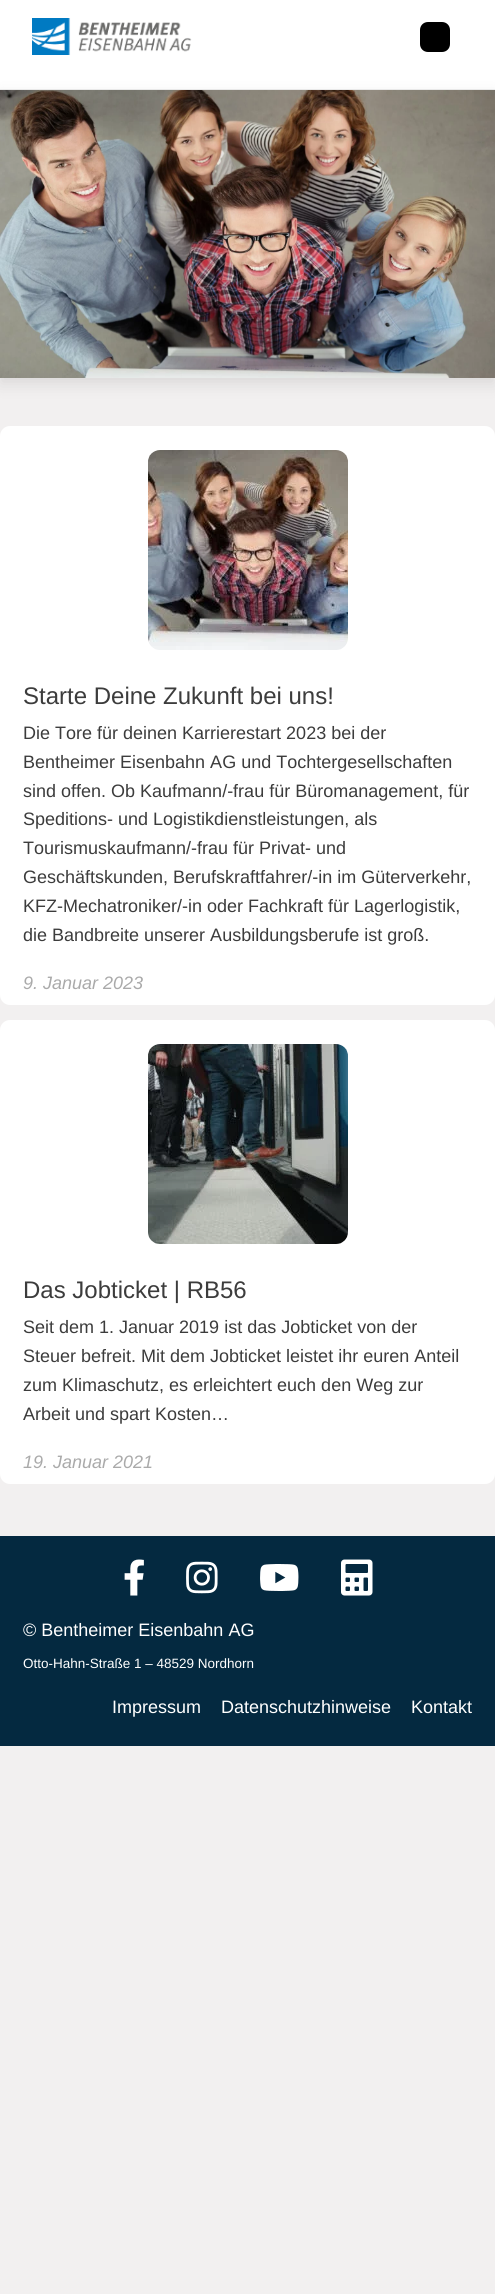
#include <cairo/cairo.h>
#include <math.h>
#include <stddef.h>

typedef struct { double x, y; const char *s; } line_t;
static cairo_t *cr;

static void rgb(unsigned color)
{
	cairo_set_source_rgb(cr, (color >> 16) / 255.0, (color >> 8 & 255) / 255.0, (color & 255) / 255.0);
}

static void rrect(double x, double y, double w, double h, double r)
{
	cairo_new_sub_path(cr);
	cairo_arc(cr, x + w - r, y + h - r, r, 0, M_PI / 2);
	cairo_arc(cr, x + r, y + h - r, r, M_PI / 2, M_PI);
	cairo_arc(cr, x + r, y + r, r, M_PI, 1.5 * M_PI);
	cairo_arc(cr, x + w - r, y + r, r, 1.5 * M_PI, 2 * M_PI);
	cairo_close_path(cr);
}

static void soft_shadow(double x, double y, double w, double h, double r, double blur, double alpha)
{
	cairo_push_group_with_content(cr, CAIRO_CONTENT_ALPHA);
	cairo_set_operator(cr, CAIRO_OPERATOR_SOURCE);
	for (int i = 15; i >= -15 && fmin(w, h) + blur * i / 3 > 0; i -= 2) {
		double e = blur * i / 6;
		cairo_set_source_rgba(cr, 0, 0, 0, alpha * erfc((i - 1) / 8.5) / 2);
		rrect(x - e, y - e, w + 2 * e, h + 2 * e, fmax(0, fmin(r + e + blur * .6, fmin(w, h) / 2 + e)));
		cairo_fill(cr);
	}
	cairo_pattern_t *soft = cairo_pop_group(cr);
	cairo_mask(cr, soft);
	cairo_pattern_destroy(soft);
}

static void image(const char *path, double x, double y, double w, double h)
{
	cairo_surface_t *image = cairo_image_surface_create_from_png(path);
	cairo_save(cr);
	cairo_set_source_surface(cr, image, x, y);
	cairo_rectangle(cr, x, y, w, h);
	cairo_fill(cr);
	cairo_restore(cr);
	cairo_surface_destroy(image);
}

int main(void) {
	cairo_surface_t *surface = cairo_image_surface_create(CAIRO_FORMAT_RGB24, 495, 2294);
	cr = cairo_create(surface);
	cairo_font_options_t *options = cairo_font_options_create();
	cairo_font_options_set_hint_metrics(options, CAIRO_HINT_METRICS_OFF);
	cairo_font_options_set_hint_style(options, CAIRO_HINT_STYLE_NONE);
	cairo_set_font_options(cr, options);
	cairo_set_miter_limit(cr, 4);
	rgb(0xf2f0f0);
	cairo_paint(cr);
	rgb(0xeeeeee);
	cairo_rectangle(cr, 0, 89, 495, 1);
	cairo_fill(cr);
	rgb(0xffffff);
	cairo_rectangle(cr, 0, 0, 495, 89);
	cairo_fill(cr);
	image("img/1.png", 32, 18, 160, 37);
	rgb(0x000000);
	cairo_new_path(cr);
	cairo_move_to(cr, 428, 22);
	cairo_line_to(cr, 435, 22);
	cairo_line_to(cr, 435, 52);
	cairo_line_to(cr, 428, 52);
	cairo_curve_to(cr, 423.5, 52, 420, 48.5, 420, 44);
	cairo_line_to(cr, 420, 30);
	cairo_curve_to(cr, 420, 25.5, 423.5, 22, 428, 22);
	cairo_close_path(cr);
	cairo_fill(cr);
	cairo_new_path(cr);
	cairo_move_to(cr, 435, 22);
	cairo_line_to(cr, 442, 22);
	cairo_curve_to(cr, 446.5, 22, 450, 25.5, 450, 30);
	cairo_line_to(cr, 450, 44);
	cairo_curve_to(cr, 450, 48.5, 446.5, 52, 442, 52);
	cairo_line_to(cr, 435, 52);
	cairo_close_path(cr);
	cairo_fill(cr);
	rgb(0x000000);
	soft_shadow(0, 96, 495, 288, 0, 8, 0.1);
	image("img/2.png", 0, 90, 495, 288);
	rgb(0xffffff);
	rrect(0, 426, 495, 579, 10);
	cairo_fill(cr);
	image("img/3.png", 148, 450, 200, 200);
	rrect(0, 1020, 495, 464, 10);
	cairo_fill(cr);
	image("img/4.png", 148, 1044, 200, 200);
	rgb(0x042940);
	cairo_rectangle(cr, 0, 1536, 495, 210);
	cairo_fill(cr);
	image("img/5.png", 124, 1559, 20, 37);
	image("img/6.png", 186, 1561, 32, 33);
	image("img/7.png", 260, 1564, 39, 27);
	image("img/8.png", 341, 1559, 32, 37);
	cairo_select_font_face(cr, "Liberation Sans", CAIRO_FONT_SLANT_NORMAL, CAIRO_FONT_WEIGHT_NORMAL);
	cairo_set_font_size(cr, 24);
	rgb(0x3c3c3c);
	cairo_move_to(cr, 23, 704);
	cairo_show_text(cr, "Starte Deine Zukunft bei uns!");
	cairo_set_font_size(cr, 18);
	{
		static const line_t items[] = {
			{23, 739, "Die Tore für deinen Karrierestart 2023 bei der"},
			{23, 768, "Bentheimer Eisenbahn AG und Tochtergesellschaften"},
			{23, 797, "sind offen. Ob Kaufmann/-frau für Büromanagement, für"},
			{23, 825, "Speditions- und Logistikdienstleistungen, als"},
			{23, 854, "Tourismuskaufmann/-frau für Privat- und"},
			{23, 883, "Geschäftskunden, Berufskraftfahrer/-in im Güterverkehr,"},
			{23, 912, "KFZ-Mechatroniker/-in oder Fachkraft für Lagerlogistik,"},
			{23, 941, "die Bandbreite unserer Ausbildungsberufe ist groß."},
		};
		for (size_t i = 0; i < sizeof items / sizeof *items; i++) {
			cairo_move_to(cr, items[i].x, items[i].y);
			cairo_show_text(cr, items[i].s);
		}
	}
	cairo_select_font_face(cr, "Liberation Sans", CAIRO_FONT_SLANT_ITALIC, CAIRO_FONT_WEIGHT_NORMAL);
	rgb(0xaaaaaa);
	cairo_move_to(cr, 23, 989);
	cairo_show_text(cr, "9. Januar 2023");
	cairo_select_font_face(cr, "Liberation Sans", CAIRO_FONT_SLANT_NORMAL, CAIRO_FONT_WEIGHT_NORMAL);
	cairo_set_font_size(cr, 24);
	rgb(0x3c3c3c);
	cairo_move_to(cr, 23, 1298);
	cairo_show_text(cr, "Das Jobticket | RB56");
	cairo_set_font_size(cr, 18);
	{
		static const line_t items[] = {
			{23, 1333, "Seit dem 1. Januar 2019 ist das Jobticket von der"},
			{23, 1362, "Steuer befreit. Mit dem Jobticket leistet ihr euren Anteil"},
			{23, 1391, "zum Klimaschutz, es erleichtert euch den Weg zur"},
			{23, 1420, "Arbeit und spart Kosten…"},
		};
		for (size_t i = 0; i < sizeof items / sizeof *items; i++) {
			cairo_move_to(cr, items[i].x, items[i].y);
			cairo_show_text(cr, items[i].s);
		}
	}
	cairo_select_font_face(cr, "Liberation Sans", CAIRO_FONT_SLANT_ITALIC, CAIRO_FONT_WEIGHT_NORMAL);
	rgb(0xaaaaaa);
	cairo_move_to(cr, 23, 1468);
	cairo_show_text(cr, "19. Januar 2021");
	cairo_select_font_face(cr, "Liberation Sans", CAIRO_FONT_SLANT_NORMAL, CAIRO_FONT_WEIGHT_NORMAL);
	rgb(0xffffff);
	cairo_move_to(cr, 23, 1636);
	cairo_show_text(cr, "© Bentheimer Eisenbahn AG");
	cairo_set_font_size(cr, 13.5);
	cairo_move_to(cr, 23, 1668);
	cairo_show_text(cr, "Otto-Hahn-Straße 1 – 48529 Nordhorn");
	cairo_set_font_size(cr, 18);
	{
		static const line_t items[] = {
			{112, 1713, "Impressum"},
			{221, 1713, "Datenschutzhinweise"},
			{411, 1713, "Kontakt"},
		};
		for (size_t i = 0; i < sizeof items / sizeof *items; i++) {
			cairo_move_to(cr, items[i].x, items[i].y);
			cairo_show_text(cr, items[i].s);
		}
	}
	cairo_surface_write_to_png(surface, "page.png");
	cairo_font_options_destroy(options);
	cairo_destroy(cr);
	cairo_surface_destroy(surface);
	return 0;
}
